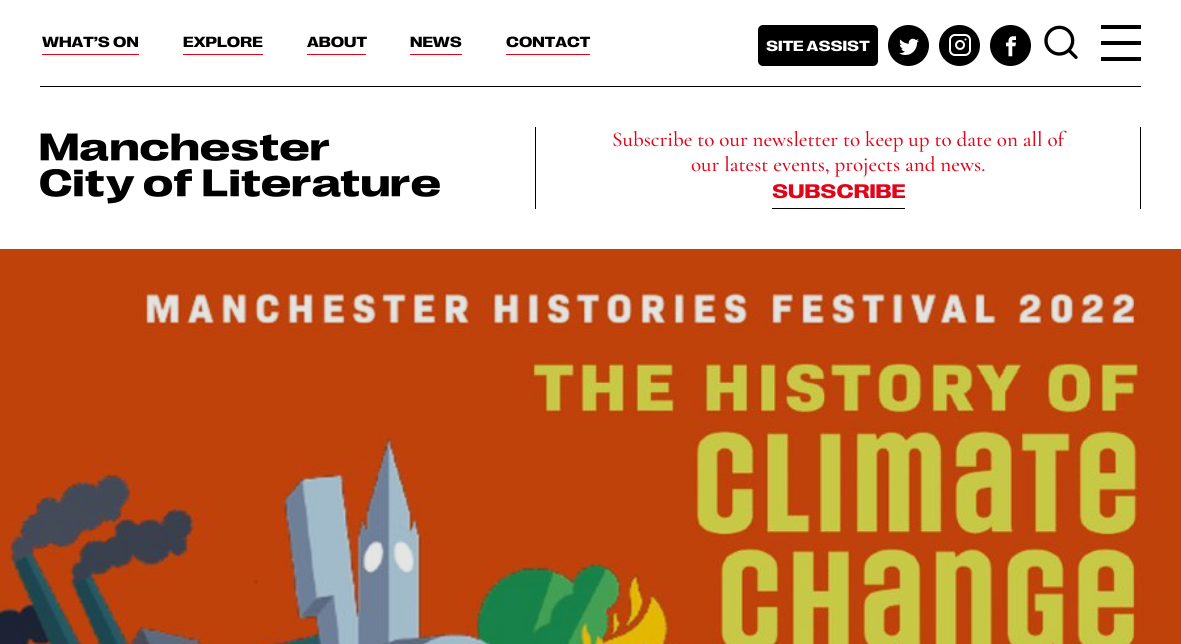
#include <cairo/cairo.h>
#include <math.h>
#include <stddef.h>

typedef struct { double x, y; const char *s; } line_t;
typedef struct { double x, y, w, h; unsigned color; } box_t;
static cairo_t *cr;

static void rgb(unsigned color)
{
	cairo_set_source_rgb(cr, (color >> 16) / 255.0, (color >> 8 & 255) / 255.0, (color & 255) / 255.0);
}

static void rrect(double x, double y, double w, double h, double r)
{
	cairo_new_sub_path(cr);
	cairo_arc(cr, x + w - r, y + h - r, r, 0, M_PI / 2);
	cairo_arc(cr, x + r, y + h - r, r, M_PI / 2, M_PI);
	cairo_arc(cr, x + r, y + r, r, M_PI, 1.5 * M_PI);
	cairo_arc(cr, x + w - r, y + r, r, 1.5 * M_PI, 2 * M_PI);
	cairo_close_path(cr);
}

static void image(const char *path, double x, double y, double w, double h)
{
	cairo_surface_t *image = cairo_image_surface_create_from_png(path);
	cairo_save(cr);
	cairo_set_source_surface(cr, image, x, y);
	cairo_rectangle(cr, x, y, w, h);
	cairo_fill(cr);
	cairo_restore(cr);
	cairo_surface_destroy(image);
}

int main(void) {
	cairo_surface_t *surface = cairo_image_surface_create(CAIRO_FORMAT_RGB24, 1181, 644);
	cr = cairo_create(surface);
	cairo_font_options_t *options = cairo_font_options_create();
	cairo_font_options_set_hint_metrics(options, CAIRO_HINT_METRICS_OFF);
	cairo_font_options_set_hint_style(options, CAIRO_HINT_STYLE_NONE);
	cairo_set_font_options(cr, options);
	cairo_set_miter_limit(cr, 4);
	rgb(0xffffff);
	cairo_paint(cr);
	{
		static const box_t items[] = {
			{40, 86, 1101, 1, 0x000000},
			{42, 54, 97, 1, 0xe2051a},
			{183, 54, 80, 1, 0xe2051a},
			{307, 54, 59, 1, 0xe2051a},
			{410, 54, 52, 1, 0xe2051a},
			{506, 54, 84, 1, 0xe2051a},
		};
		for (size_t i = 0; i < sizeof items / sizeof *items; i++) {
			rgb(items[i].color);
			cairo_rectangle(cr, items[i].x, items[i].y, items[i].w, items[i].h);
			cairo_fill(cr);
		}
	}
	rgb(0x000000);
	rrect(758, 25, 120, 41, 5);
	cairo_fill(cr);
	cairo_arc(cr, 908.5, 45.5, 20.5, 0, 2 * M_PI);
	cairo_fill(cr);
	image("img/1.png", 899, 38, 20, 17);
	cairo_arc(cr, 959.5, 45.5, 20.5, 0, 2 * M_PI);
	cairo_fill(cr);
	image("img/2.png", 949, 34, 22, 22);
	cairo_arc(cr, 1010.5, 45.5, 20.5, 0, 2 * M_PI);
	cairo_fill(cr);
	image("img/3.png", 1006, 36, 10, 21);
	image("img/4.png", 1044, 25, 34, 34);
	{
		static const box_t items[] = {
			{1101, 25, 40, 4, 0x000000},
			{1101, 41, 40, 4, 0x000000},
			{1101, 57, 40, 4, 0x000000},
		};
		for (size_t i = 0; i < sizeof items / sizeof *items; i++) {
			rgb(items[i].color);
			cairo_rectangle(cr, items[i].x, items[i].y, items[i].w, items[i].h);
			cairo_fill(cr);
		}
	}
	image("img/5.png", 40, 133, 400, 71);
	{
		static const box_t items[] = {
			{1140, 127, 1, 82, 0x000000},
			{535, 127, 1, 82, 0x000000},
			{772, 208, 133, 1, 0x000000},
		};
		for (size_t i = 0; i < sizeof items / sizeof *items; i++) {
			rgb(items[i].color);
			cairo_rectangle(cr, items[i].x, items[i].y, items[i].w, items[i].h);
			cairo_fill(cr);
		}
	}
	image("img/6.png", 0, 249, 1181, 395);
	cairo_select_font_face(cr, "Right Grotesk", CAIRO_FONT_SLANT_NORMAL, CAIRO_FONT_WEIGHT_BOLD);
	cairo_set_font_size(cr, 15);
	{
		static const line_t items[] = {
			{42, 47, "WHAT’S ON"},
			{183, 47, "EXPLORE"},
			{307, 47, "ABOUT"},
			{410, 47, "NEWS"},
			{506, 47, "CONTACT"},
		};
		for (size_t i = 0; i < sizeof items / sizeof *items; i++) {
			cairo_move_to(cr, items[i].x, items[i].y);
			cairo_show_text(cr, items[i].s);
		}
	}
	rgb(0xffffff);
	cairo_move_to(cr, 766, 51);
	cairo_show_text(cr, "SITE ASSIST");
	cairo_select_font_face(cr, "Cormorant Garamond Medium", CAIRO_FONT_SLANT_NORMAL, CAIRO_FONT_WEIGHT_NORMAL);
	cairo_set_font_size(cr, 21);
	rgb(0xe2051a);
	cairo_move_to(cr, 612, 146);
	cairo_show_text(cr, "Subscribe to our newsletter to keep up to date on all of");
	cairo_move_to(cr, 691, 171);
	cairo_show_text(cr, "our latest events, projects and news.");
	cairo_select_font_face(cr, "Right Grotesk", CAIRO_FONT_SLANT_NORMAL, CAIRO_FONT_WEIGHT_BOLD);
	cairo_set_font_size(cr, 20);
	cairo_move_to(cr, 772, 198);
	cairo_show_text(cr, "SUBSCRIBE");
	cairo_surface_write_to_png(surface, "page.png");
	cairo_font_options_destroy(options);
	cairo_destroy(cr);
	cairo_surface_destroy(surface);
	return 0;
}
